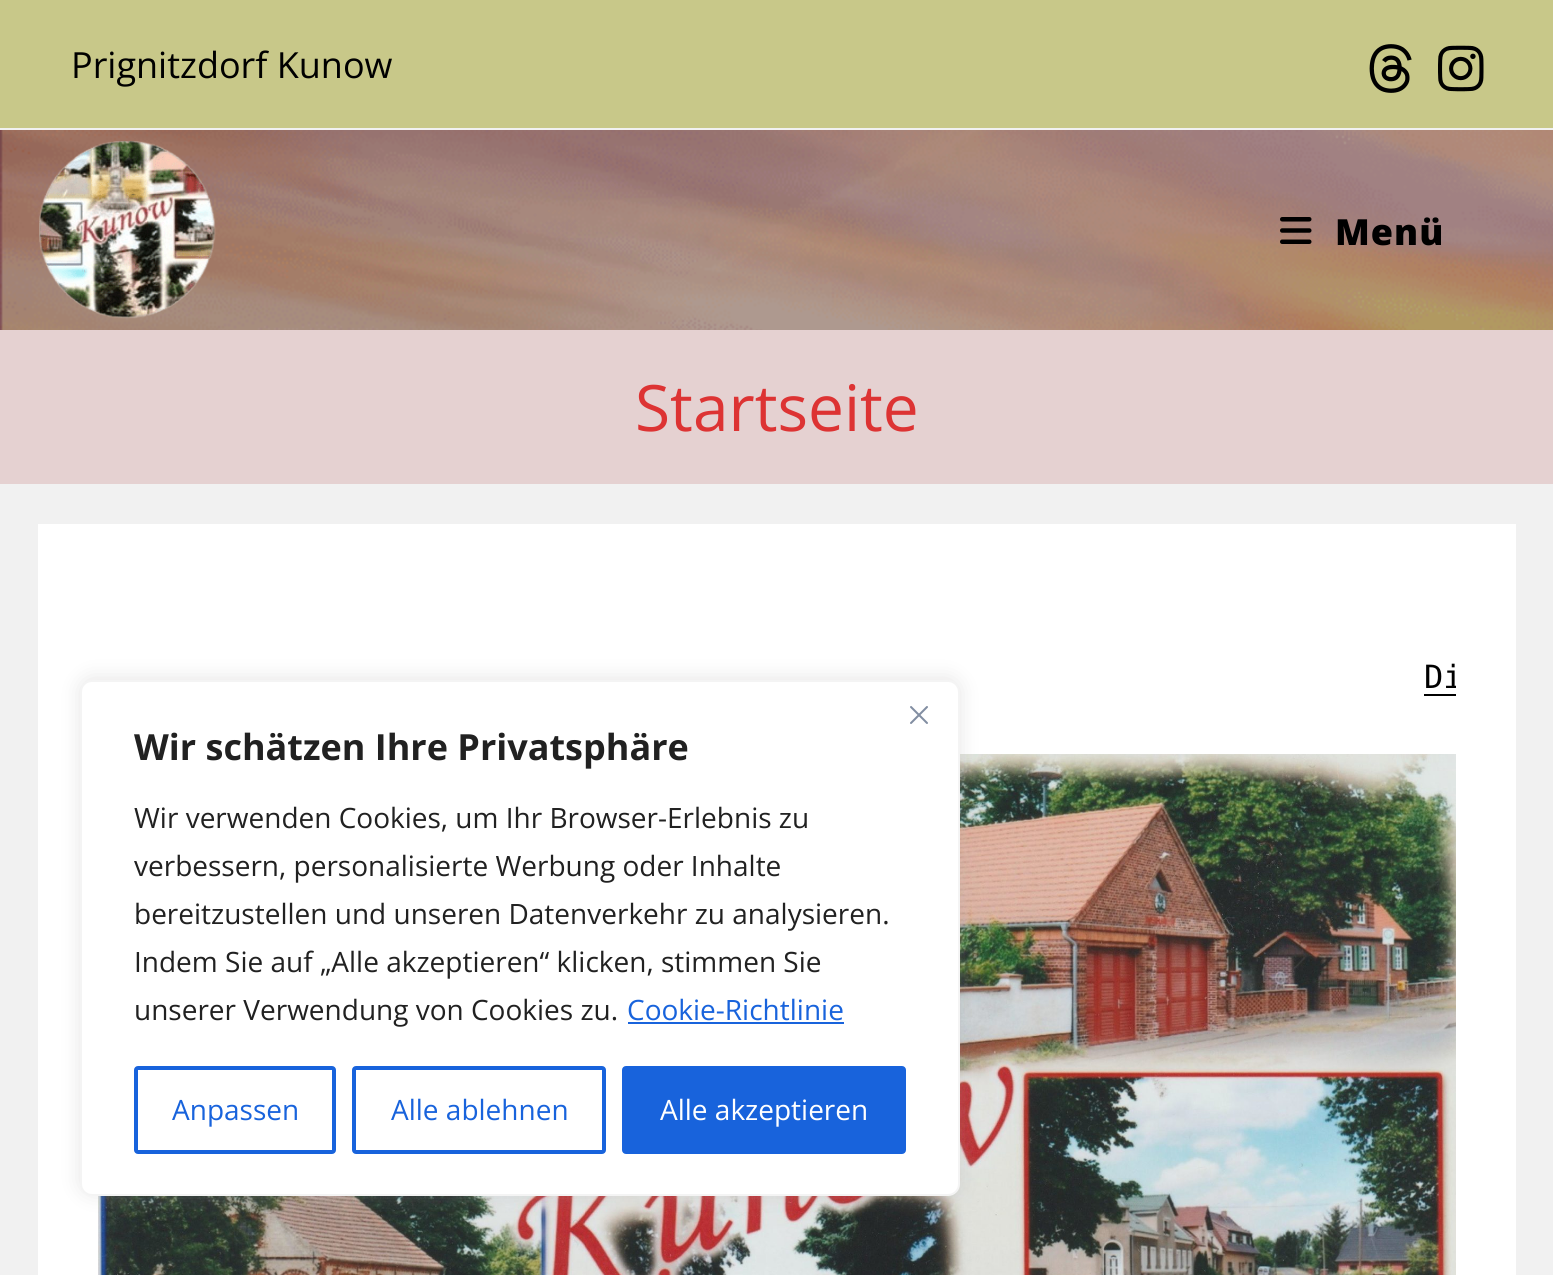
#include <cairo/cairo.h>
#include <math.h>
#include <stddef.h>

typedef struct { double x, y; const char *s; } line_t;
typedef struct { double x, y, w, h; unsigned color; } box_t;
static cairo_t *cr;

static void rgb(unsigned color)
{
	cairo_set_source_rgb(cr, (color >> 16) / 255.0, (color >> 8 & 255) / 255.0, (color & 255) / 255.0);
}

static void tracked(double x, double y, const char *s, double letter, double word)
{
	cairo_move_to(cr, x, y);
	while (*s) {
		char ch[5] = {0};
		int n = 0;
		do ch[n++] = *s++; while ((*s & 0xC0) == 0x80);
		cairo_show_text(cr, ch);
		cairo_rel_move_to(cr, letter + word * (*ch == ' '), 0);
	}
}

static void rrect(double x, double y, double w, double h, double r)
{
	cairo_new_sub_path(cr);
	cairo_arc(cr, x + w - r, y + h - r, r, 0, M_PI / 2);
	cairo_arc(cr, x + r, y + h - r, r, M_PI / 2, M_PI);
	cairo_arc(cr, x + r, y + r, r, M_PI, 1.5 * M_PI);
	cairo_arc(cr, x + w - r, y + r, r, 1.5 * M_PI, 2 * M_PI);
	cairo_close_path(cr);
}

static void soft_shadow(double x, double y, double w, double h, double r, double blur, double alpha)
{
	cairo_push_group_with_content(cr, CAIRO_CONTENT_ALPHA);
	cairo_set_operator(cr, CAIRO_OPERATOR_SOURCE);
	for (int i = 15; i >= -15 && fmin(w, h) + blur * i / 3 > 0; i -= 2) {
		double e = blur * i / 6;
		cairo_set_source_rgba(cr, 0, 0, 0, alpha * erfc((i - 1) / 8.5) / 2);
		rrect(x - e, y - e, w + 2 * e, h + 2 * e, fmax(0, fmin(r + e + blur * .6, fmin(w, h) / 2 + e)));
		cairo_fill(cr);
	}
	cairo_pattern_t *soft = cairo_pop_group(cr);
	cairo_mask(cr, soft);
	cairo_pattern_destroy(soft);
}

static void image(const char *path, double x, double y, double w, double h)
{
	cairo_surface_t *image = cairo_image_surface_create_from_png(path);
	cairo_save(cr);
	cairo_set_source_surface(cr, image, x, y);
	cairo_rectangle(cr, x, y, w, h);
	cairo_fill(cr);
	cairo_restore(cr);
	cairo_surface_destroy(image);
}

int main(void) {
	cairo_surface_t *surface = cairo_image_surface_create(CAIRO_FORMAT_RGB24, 1553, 1275);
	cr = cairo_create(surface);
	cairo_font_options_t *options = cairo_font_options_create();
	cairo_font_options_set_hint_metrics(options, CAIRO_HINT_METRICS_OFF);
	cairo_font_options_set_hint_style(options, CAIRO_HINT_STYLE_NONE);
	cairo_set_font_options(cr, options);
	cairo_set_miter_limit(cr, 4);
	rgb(0xf1f1f1);
	cairo_paint(cr);
	rgb(0xc8c889);
	cairo_rectangle(cr, 0, 0, 1553, 128);
	cairo_fill(cr);
	image("img/1.png", 1369, 44, 43, 49);
	image("img/2.png", 1438, 45, 46, 47);
	image("img/3.png", 0, 130, 1553, 200);
	image("img/4.png", 39, 141, 177, 178);
	image("img/5.png", 1280, 217, 32, 27);
	{
		static const box_t items[] = {
			{0, 330, 1553, 154, 0xe5d1d1},
			{38, 524, 1478, 751, 0xffffff},
			{1424, 694, 32, 2, 0x000000},
		};
		for (size_t i = 0; i < sizeof items / sizeof *items; i++) {
			rgb(items[i].color);
			cairo_rectangle(cr, items[i].x, items[i].y, items[i].w, items[i].h);
			cairo_fill(cr);
		}
	}
	image("img/6.png", 98, 754, 1358, 521);
	rgb(0xacabab);
	soft_shadow(80, 678, 880, 516, 12, 10, 0.3);
	rgb(0xffffff);
	rrect(81, 681, 878, 514, 11);
	cairo_fill_preserve(cr);
	rgb(0xf4f4f4);
	cairo_stroke(cr);
	image("img/7.png", 910, 706, 18, 18);
	rgb(0x1863dc);
	cairo_rectangle(cr, 628, 1022, 216, 2);
	cairo_fill(cr);
	rrect(136, 1068, 198, 84, 2);
	cairo_set_line_width(cr, 4);
	cairo_stroke(cr);
	rrect(354, 1068, 250, 84, 2);
	cairo_stroke(cr);
	rrect(624, 1068, 280, 84, 2);
	cairo_fill_preserve(cr);
	cairo_stroke(cr);
	cairo_select_font_face(cr, "Open Sans", CAIRO_FONT_SLANT_NORMAL, CAIRO_FONT_WEIGHT_NORMAL);
	cairo_set_font_size(cr, 36);
	rgb(0x000000);
	cairo_move_to(cr, 71, 78);
	cairo_show_text(cr, "Prignitzdorf Kunow");
	cairo_select_font_face(cr, "Open Sans ExtraBold", CAIRO_FONT_SLANT_NORMAL, CAIRO_FONT_WEIGHT_NORMAL);
	tracked(1335, 245, "Menü", 1, 0);
	cairo_select_font_face(cr, "Open Sans", CAIRO_FONT_SLANT_NORMAL, CAIRO_FONT_WEIGHT_NORMAL);
	cairo_set_font_size(cr, 64);
	rgb(0xdd3333);
	cairo_move_to(cr, 635, 431);
	cairo_show_text(cr, "Startseite");
	cairo_save(cr);
	cairo_rectangle(cr, 98, 624, 1358, 90);
	cairo_clip(cr);
	cairo_select_font_face(cr, "DejaVu Sans Mono", CAIRO_FONT_SLANT_NORMAL, CAIRO_FONT_WEIGHT_NORMAL);
	cairo_set_font_size(cr, 32);
	rgb(0x000000);
	cairo_move_to(cr, 1424, 688);
	cairo_show_text(cr, "Di");
	cairo_restore(cr);
	cairo_select_font_face(cr, "Open Sans", CAIRO_FONT_SLANT_NORMAL, CAIRO_FONT_WEIGHT_BOLD);
	cairo_set_font_size(cr, 36);
	rgb(0x212121);
	cairo_move_to(cr, 134, 760);
	cairo_show_text(cr, "Wir schätzen Ihre Privatsphäre");
	cairo_select_font_face(cr, "Open Sans", CAIRO_FONT_SLANT_NORMAL, CAIRO_FONT_WEIGHT_NORMAL);
	cairo_set_font_size(cr, 28);
	{
		static const line_t items[] = {
			{134, 828, "Wir verwenden Cookies, um Ihr Browser-Erlebnis zu"},
			{134, 876, "verbessern, personalisierte Werbung oder Inhalte"},
			{134, 924, "bereitzustellen und unseren Datenverkehr zu analysieren."},
			{134, 972, "Indem Sie auf „Alle akzeptieren“ klicken, stimmen Sie"},
			{134, 1020, "unserer Verwendung von Cookies zu."},
		};
		for (size_t i = 0; i < sizeof items / sizeof *items; i++) {
			cairo_move_to(cr, items[i].x, items[i].y);
			cairo_show_text(cr, items[i].s);
		}
	}
	rgb(0x1863dc);
	{
		static const line_t items[] = {
			{627, 1020, "Cookie-Richtlinie"},
			{172, 1120, "Anpassen"},
			{391, 1120, "Alle ablehnen"},
		};
		for (size_t i = 0; i < sizeof items / sizeof *items; i++) {
			cairo_move_to(cr, items[i].x, items[i].y);
			cairo_show_text(cr, items[i].s);
		}
	}
	rgb(0xffffff);
	cairo_move_to(cr, 660, 1120);
	cairo_show_text(cr, "Alle akzeptieren");
	cairo_surface_write_to_png(surface, "page.png");
	cairo_font_options_destroy(options);
	cairo_destroy(cr);
	cairo_surface_destroy(surface);
	return 0;
}
